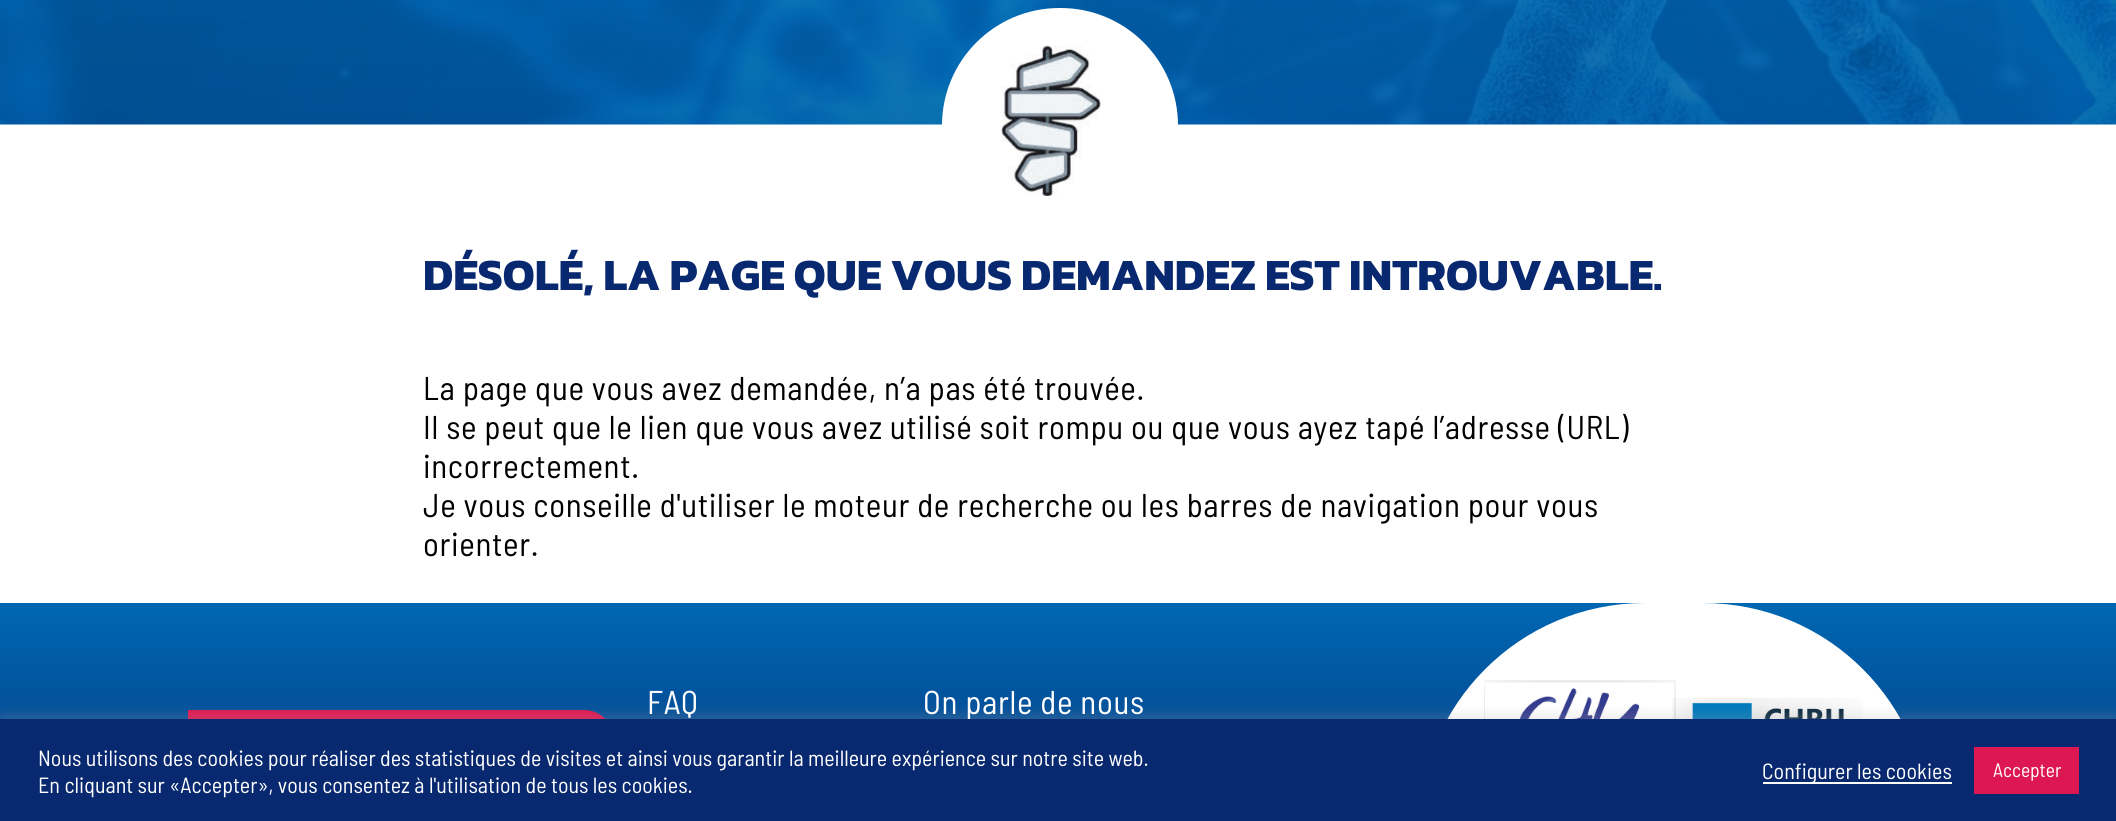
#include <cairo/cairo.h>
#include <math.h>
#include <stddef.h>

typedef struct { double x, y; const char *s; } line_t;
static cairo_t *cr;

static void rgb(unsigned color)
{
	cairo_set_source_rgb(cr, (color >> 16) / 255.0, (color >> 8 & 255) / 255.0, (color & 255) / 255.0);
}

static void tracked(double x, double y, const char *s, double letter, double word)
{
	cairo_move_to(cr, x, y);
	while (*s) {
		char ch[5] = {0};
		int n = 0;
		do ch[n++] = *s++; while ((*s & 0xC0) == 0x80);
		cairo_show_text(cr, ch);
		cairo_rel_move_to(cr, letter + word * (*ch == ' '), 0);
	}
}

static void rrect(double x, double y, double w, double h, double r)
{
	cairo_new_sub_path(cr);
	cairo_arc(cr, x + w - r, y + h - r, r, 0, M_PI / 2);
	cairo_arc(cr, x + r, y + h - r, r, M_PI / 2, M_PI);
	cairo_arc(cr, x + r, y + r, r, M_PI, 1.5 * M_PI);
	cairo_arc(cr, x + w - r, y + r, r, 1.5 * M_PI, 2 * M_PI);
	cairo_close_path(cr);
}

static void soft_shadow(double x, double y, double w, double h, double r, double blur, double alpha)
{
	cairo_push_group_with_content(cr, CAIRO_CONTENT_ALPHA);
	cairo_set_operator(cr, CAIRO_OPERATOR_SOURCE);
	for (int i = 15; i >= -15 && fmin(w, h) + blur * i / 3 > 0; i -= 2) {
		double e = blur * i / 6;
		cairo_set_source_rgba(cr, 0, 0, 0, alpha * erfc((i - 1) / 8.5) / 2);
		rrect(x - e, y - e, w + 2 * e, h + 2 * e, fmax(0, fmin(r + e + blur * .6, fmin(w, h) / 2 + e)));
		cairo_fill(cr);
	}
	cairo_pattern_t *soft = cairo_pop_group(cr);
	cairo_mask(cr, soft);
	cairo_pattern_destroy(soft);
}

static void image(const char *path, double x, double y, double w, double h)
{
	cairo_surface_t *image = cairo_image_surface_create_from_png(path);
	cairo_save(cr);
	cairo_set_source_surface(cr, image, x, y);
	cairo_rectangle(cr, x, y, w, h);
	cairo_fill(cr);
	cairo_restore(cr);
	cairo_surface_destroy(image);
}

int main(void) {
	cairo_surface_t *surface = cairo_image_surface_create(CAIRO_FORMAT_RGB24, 2116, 821);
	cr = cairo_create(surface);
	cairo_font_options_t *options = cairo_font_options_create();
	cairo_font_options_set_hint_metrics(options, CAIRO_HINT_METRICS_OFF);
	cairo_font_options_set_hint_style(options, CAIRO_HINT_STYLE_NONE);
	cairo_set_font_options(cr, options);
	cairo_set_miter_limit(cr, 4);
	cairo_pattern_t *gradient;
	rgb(0xffffff);
	cairo_paint(cr);
	image("img/1.png", 0, 0, 2116, 125);
	rgb(0xffffff);
	rrect(942, 8, 236, 235, 117.5);
	cairo_fill(cr);
	image("img/2.png", 1001, 45, 100, 151);
	gradient = cairo_pattern_create_linear(1058, 603, 1058, 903);
	cairo_pattern_add_color_stop_rgba(gradient, 0, 0, 0.404, 0.698, 1);
	cairo_pattern_add_color_stop_rgba(gradient, 1, 0.031, 0.157, 0.435, 1);
	cairo_set_source(cr, gradient);
	cairo_pattern_destroy(gradient);
	cairo_rectangle(cr, 0, 603, 2116, 116);
	cairo_fill(cr);
	rgb(0xdd1751);
	cairo_new_path(cr);
	cairo_move_to(cr, 188, 710);
	cairo_line_to(cr, 584, 710);
	cairo_curve_to(cr, 600.5, 710, 614, 723.5, 614, 740);
	cairo_line_to(cr, 614, 767);
	cairo_curve_to(cr, 614, 783.5, 600.5, 797, 584, 797);
	cairo_line_to(cr, 188, 797);
	cairo_close_path(cr);
	cairo_fill(cr);
	rgb(0xffffff);
	cairo_new_path(cr);
	cairo_move_to(cr, 1645, 603);
	cairo_line_to(cr, 1703, 603);
	cairo_curve_to(cr, 1828, 603, 1929, 704, 1929, 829);
	cairo_line_to(cr, 1929, 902);
	cairo_line_to(cr, 1419, 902);
	cairo_line_to(cr, 1419, 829);
	cairo_curve_to(cr, 1419, 704, 1520, 603, 1645, 603);
	cairo_close_path(cr);
	cairo_fill(cr);
	image("img/3.png", 1484, 680, 192, 39);
	image("img/4.png", 1672, 698, 191, 21);
	rgb(0xacabab);
	soft_shadow(0, 717, 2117, 104, 0, 7.5, 0.3);
	cairo_select_font_face(cr, "Kanit", CAIRO_FONT_SLANT_NORMAL, CAIRO_FONT_WEIGHT_BOLD);
	cairo_set_font_size(cr, 45);
	rgb(0x08286f);
	cairo_move_to(cr, 423, 290);
	cairo_show_text(cr, "DÉSOLÉ, LA PAGE QUE VOUS DEMANDEZ EST INTROUVABLE.");
	cairo_select_font_face(cr, "Barlow Semi Condensed", CAIRO_FONT_SLANT_NORMAL, CAIRO_FONT_WEIGHT_NORMAL);
	cairo_set_font_size(cr, 33);
	rgb(0x000000);
	{
		static const line_t items[] = {
			{423, 400, "La page que vous avez demandée, n’a pas été trouvée."},
			{423, 439, "Il se peut que le lien que vous avez utilisé soit rompu ou que vous ayez tapé l’adresse (URL)"},
			{423, 478, "incorrectement."},
			{423, 517, "Je vous conseille d'utiliser le moteur de recherche ou les barres de navigation pour vous"},
			{423, 556, "orienter."},
		};
		for (size_t i = 0; i < sizeof items / sizeof *items; i++) {
			tracked(items[i].x, items[i].y, items[i].s, 0.65, 0);
		}
	}
	rgb(0xffffff);
	tracked(647, 714, "FAQ", 0.65, 0);
	tracked(923, 714, "On parle de nous", 0.65, 0);
	rgb(0x08286f);
	cairo_rectangle(cr, 0, 719, 2116, 102);
	cairo_fill(cr);
	cairo_set_font_size(cr, 22);
	rgb(0xffffff);
	cairo_move_to(cr, 38, 766);
	cairo_show_text(cr, "Nous utilisons des cookies pour réaliser des statistiques de visites et ainsi vous garantir la meilleure expérience sur notre site web.");
	cairo_move_to(cr, 38, 793);
	cairo_show_text(cr, "En cliquant sur «Accepter», vous consentez à l'utilisation de tous les cookies.");
	cairo_rectangle(cr, 1763, 782, 189, 2);
	cairo_fill(cr);
	cairo_move_to(cr, 1762, 779);
	cairo_show_text(cr, "Configurer les cookies");
	rgb(0xdd1751);
	cairo_rectangle(cr, 1974, 747, 105, 47);
	cairo_fill(cr);
	cairo_set_font_size(cr, 19.5);
	rgb(0xffffff);
	cairo_move_to(cr, 1993, 777);
	cairo_show_text(cr, "Accepter");
	cairo_surface_write_to_png(surface, "page.png");
	cairo_font_options_destroy(options);
	cairo_destroy(cr);
	cairo_surface_destroy(surface);
	return 0;
}
